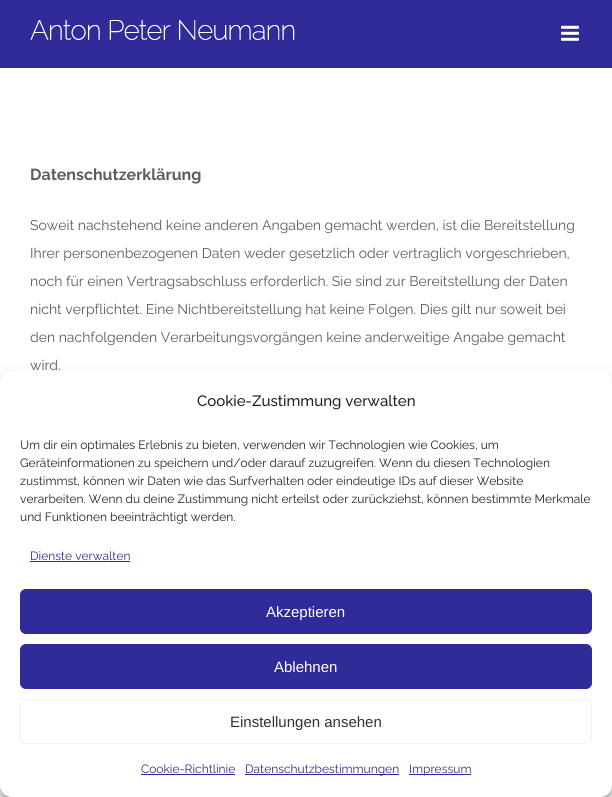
#include <cairo/cairo.h>
#include <math.h>
#include <stddef.h>

typedef struct { double x, y; const char *s; } line_t;
typedef struct { double x, y, w, h; unsigned color; } box_t;
static cairo_t *cr;

static void rgb(unsigned color)
{
	cairo_set_source_rgb(cr, (color >> 16) / 255.0, (color >> 8 & 255) / 255.0, (color & 255) / 255.0);
}

static void rrect(double x, double y, double w, double h, double r)
{
	cairo_new_sub_path(cr);
	cairo_arc(cr, x + w - r, y + h - r, r, 0, M_PI / 2);
	cairo_arc(cr, x + r, y + h - r, r, M_PI / 2, M_PI);
	cairo_arc(cr, x + r, y + r, r, M_PI, 1.5 * M_PI);
	cairo_arc(cr, x + w - r, y + r, r, 1.5 * M_PI, 2 * M_PI);
	cairo_close_path(cr);
}

static void soft_shadow(double x, double y, double w, double h, double r, double blur, double alpha)
{
	cairo_push_group_with_content(cr, CAIRO_CONTENT_ALPHA);
	cairo_set_operator(cr, CAIRO_OPERATOR_SOURCE);
	for (int i = 15; i >= -15 && fmin(w, h) + blur * i / 3 > 0; i -= 2) {
		double e = blur * i / 6;
		cairo_set_source_rgba(cr, 0, 0, 0, alpha * erfc((i - 1) / 8.5) / 2);
		rrect(x - e, y - e, w + 2 * e, h + 2 * e, fmax(0, fmin(r + e + blur * .6, fmin(w, h) / 2 + e)));
		cairo_fill(cr);
	}
	cairo_pattern_t *soft = cairo_pop_group(cr);
	cairo_mask(cr, soft);
	cairo_pattern_destroy(soft);
}

static void image(const char *path, double x, double y, double w, double h)
{
	cairo_surface_t *image = cairo_image_surface_create_from_png(path);
	cairo_save(cr);
	cairo_set_source_surface(cr, image, x, y);
	cairo_rectangle(cr, x, y, w, h);
	cairo_fill(cr);
	cairo_restore(cr);
	cairo_surface_destroy(image);
}

int main(void) {
	cairo_surface_t *surface = cairo_image_surface_create(CAIRO_FORMAT_RGB24, 612, 797);
	cr = cairo_create(surface);
	cairo_font_options_t *options = cairo_font_options_create();
	cairo_font_options_set_hint_metrics(options, CAIRO_HINT_METRICS_OFF);
	cairo_font_options_set_hint_style(options, CAIRO_HINT_STYLE_NONE);
	cairo_set_font_options(cr, options);
	cairo_set_miter_limit(cr, 4);
	rgb(0xffffff);
	cairo_paint(cr);
	rgb(0x312b99);
	cairo_rectangle(cr, 0, 0, 612, 68);
	cairo_fill(cr);
	image("img/1.png", 30, 20, 265, 20);
	image("img/2.png", 561, 25, 18, 16);
	rgb(0x000000);
	soft_shadow(0, 377, 612, 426, 12, 3, 0.23);
	soft_shadow(0, 381, 612, 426, 12, 10, 0.19);
	rgb(0xffffff);
	rrect(0, 371, 612, 426, 12);
	cairo_fill(cr);
	rgb(0x312b99);
	cairo_rectangle(cr, 30, 561, 100, 1);
	cairo_fill(cr);
	rrect(20.5, 589.5, 571, 44, 5.5);
	cairo_fill_preserve(cr);
	cairo_set_line_width(cr, 1);
	cairo_stroke(cr);
	rrect(20.5, 644.5, 571, 44, 5.5);
	cairo_fill_preserve(cr);
	cairo_stroke(cr);
	rrect(20.5, 699.5, 571, 44, 5.5);
	rgb(0xf2f2f2);
	cairo_stroke(cr);
	{
		static const box_t items[] = {
			{141, 774, 94, 1, 0x312b99},
			{245, 774, 154, 1, 0x312b99},
			{409, 774, 62, 1, 0x312b99},
		};
		for (size_t i = 0; i < sizeof items / sizeof *items; i++) {
			rgb(items[i].color);
			cairo_rectangle(cr, items[i].x, items[i].y, items[i].w, items[i].h);
			cairo_fill(cr);
		}
	}
	cairo_select_font_face(cr, "Raleway", CAIRO_FONT_SLANT_NORMAL, CAIRO_FONT_WEIGHT_BOLD);
	cairo_set_font_size(cr, 16);
	rgb(0x5a5d62);
	cairo_move_to(cr, 30, 180);
	cairo_show_text(cr, "Datenschutzerklärung");
	cairo_select_font_face(cr, "Raleway", CAIRO_FONT_SLANT_NORMAL, CAIRO_FONT_WEIGHT_NORMAL);
	cairo_set_font_size(cr, 14);
	{
		static const line_t items[] = {
			{30, 230, "Soweit nachstehend keine anderen Angaben gemacht werden, ist die Bereitstellung"},
			{30, 258, "Ihrer personenbezogenen Daten weder gesetzlich oder vertraglich vorgeschrieben,"},
			{30, 286, "noch für einen Vertragsabschluss erforderlich. Sie sind zur Bereitstellung der Daten"},
			{30, 314, "nicht verpflichtet. Eine Nichtbereitstellung hat keine Folgen. Dies gilt nur soweit bei"},
			{30, 342, "den nachfolgenden Verarbeitungsvorgängen keine anderweitige Angabe gemacht"},
			{30, 370, "wird."},
		};
		for (size_t i = 0; i < sizeof items / sizeof *items; i++) {
			cairo_move_to(cr, items[i].x, items[i].y);
			cairo_show_text(cr, items[i].s);
		}
	}
	cairo_select_font_face(cr, "Raleway Medium", CAIRO_FONT_SLANT_NORMAL, CAIRO_FONT_WEIGHT_NORMAL);
	cairo_set_font_size(cr, 15);
	rgb(0x222222);
	cairo_move_to(cr, 197, 406);
	cairo_show_text(cr, "Cookie-Zustimmung verwalten");
	cairo_select_font_face(cr, "Raleway", CAIRO_FONT_SLANT_NORMAL, CAIRO_FONT_WEIGHT_NORMAL);
	cairo_set_font_size(cr, 12);
	{
		static const line_t items[] = {
			{20, 449, "Um dir ein optimales Erlebnis zu bieten, verwenden wir Technologien wie Cookies, um"},
			{20, 467, "Geräteinformationen zu speichern und/oder darauf zuzugreifen. Wenn du diesen Technologien"},
			{20, 485, "zustimmst, können wir Daten wie das Surfverhalten oder eindeutige IDs auf dieser Website"},
			{20, 503, "verarbeiten. Wenn du deine Zustimmung nicht erteilst oder zurückziehst, können bestimmte Merkmale"},
			{20, 521, "und Funktionen beeinträchtigt werden."},
		};
		for (size_t i = 0; i < sizeof items / sizeof *items; i++) {
			cairo_move_to(cr, items[i].x, items[i].y);
			cairo_show_text(cr, items[i].s);
		}
	}
	rgb(0x312b99);
	cairo_move_to(cr, 30, 560);
	cairo_show_text(cr, "Dienste verwalten");
	cairo_select_font_face(cr, "Liberation Sans", CAIRO_FONT_SLANT_NORMAL, CAIRO_FONT_WEIGHT_NORMAL);
	cairo_set_font_size(cr, 15);
	rgb(0xffffff);
	cairo_move_to(cr, 266, 617);
	cairo_show_text(cr, "Akzeptieren");
	cairo_move_to(cr, 274, 672);
	cairo_show_text(cr, "Ablehnen");
	rgb(0x333333);
	cairo_move_to(cr, 230, 727);
	cairo_show_text(cr, "Einstellungen ansehen");
	cairo_select_font_face(cr, "Raleway", CAIRO_FONT_SLANT_NORMAL, CAIRO_FONT_WEIGHT_NORMAL);
	cairo_set_font_size(cr, 12);
	rgb(0x312b99);
	{
		static const line_t items[] = {
			{141, 773, "Cookie-Richtlinie"},
			{245, 773, "Datenschutzbestimmungen"},
			{409, 773, "Impressum"},
		};
		for (size_t i = 0; i < sizeof items / sizeof *items; i++) {
			cairo_move_to(cr, items[i].x, items[i].y);
			cairo_show_text(cr, items[i].s);
		}
	}
	cairo_surface_write_to_png(surface, "page.png");
	cairo_font_options_destroy(options);
	cairo_destroy(cr);
	cairo_surface_destroy(surface);
	return 0;
}
